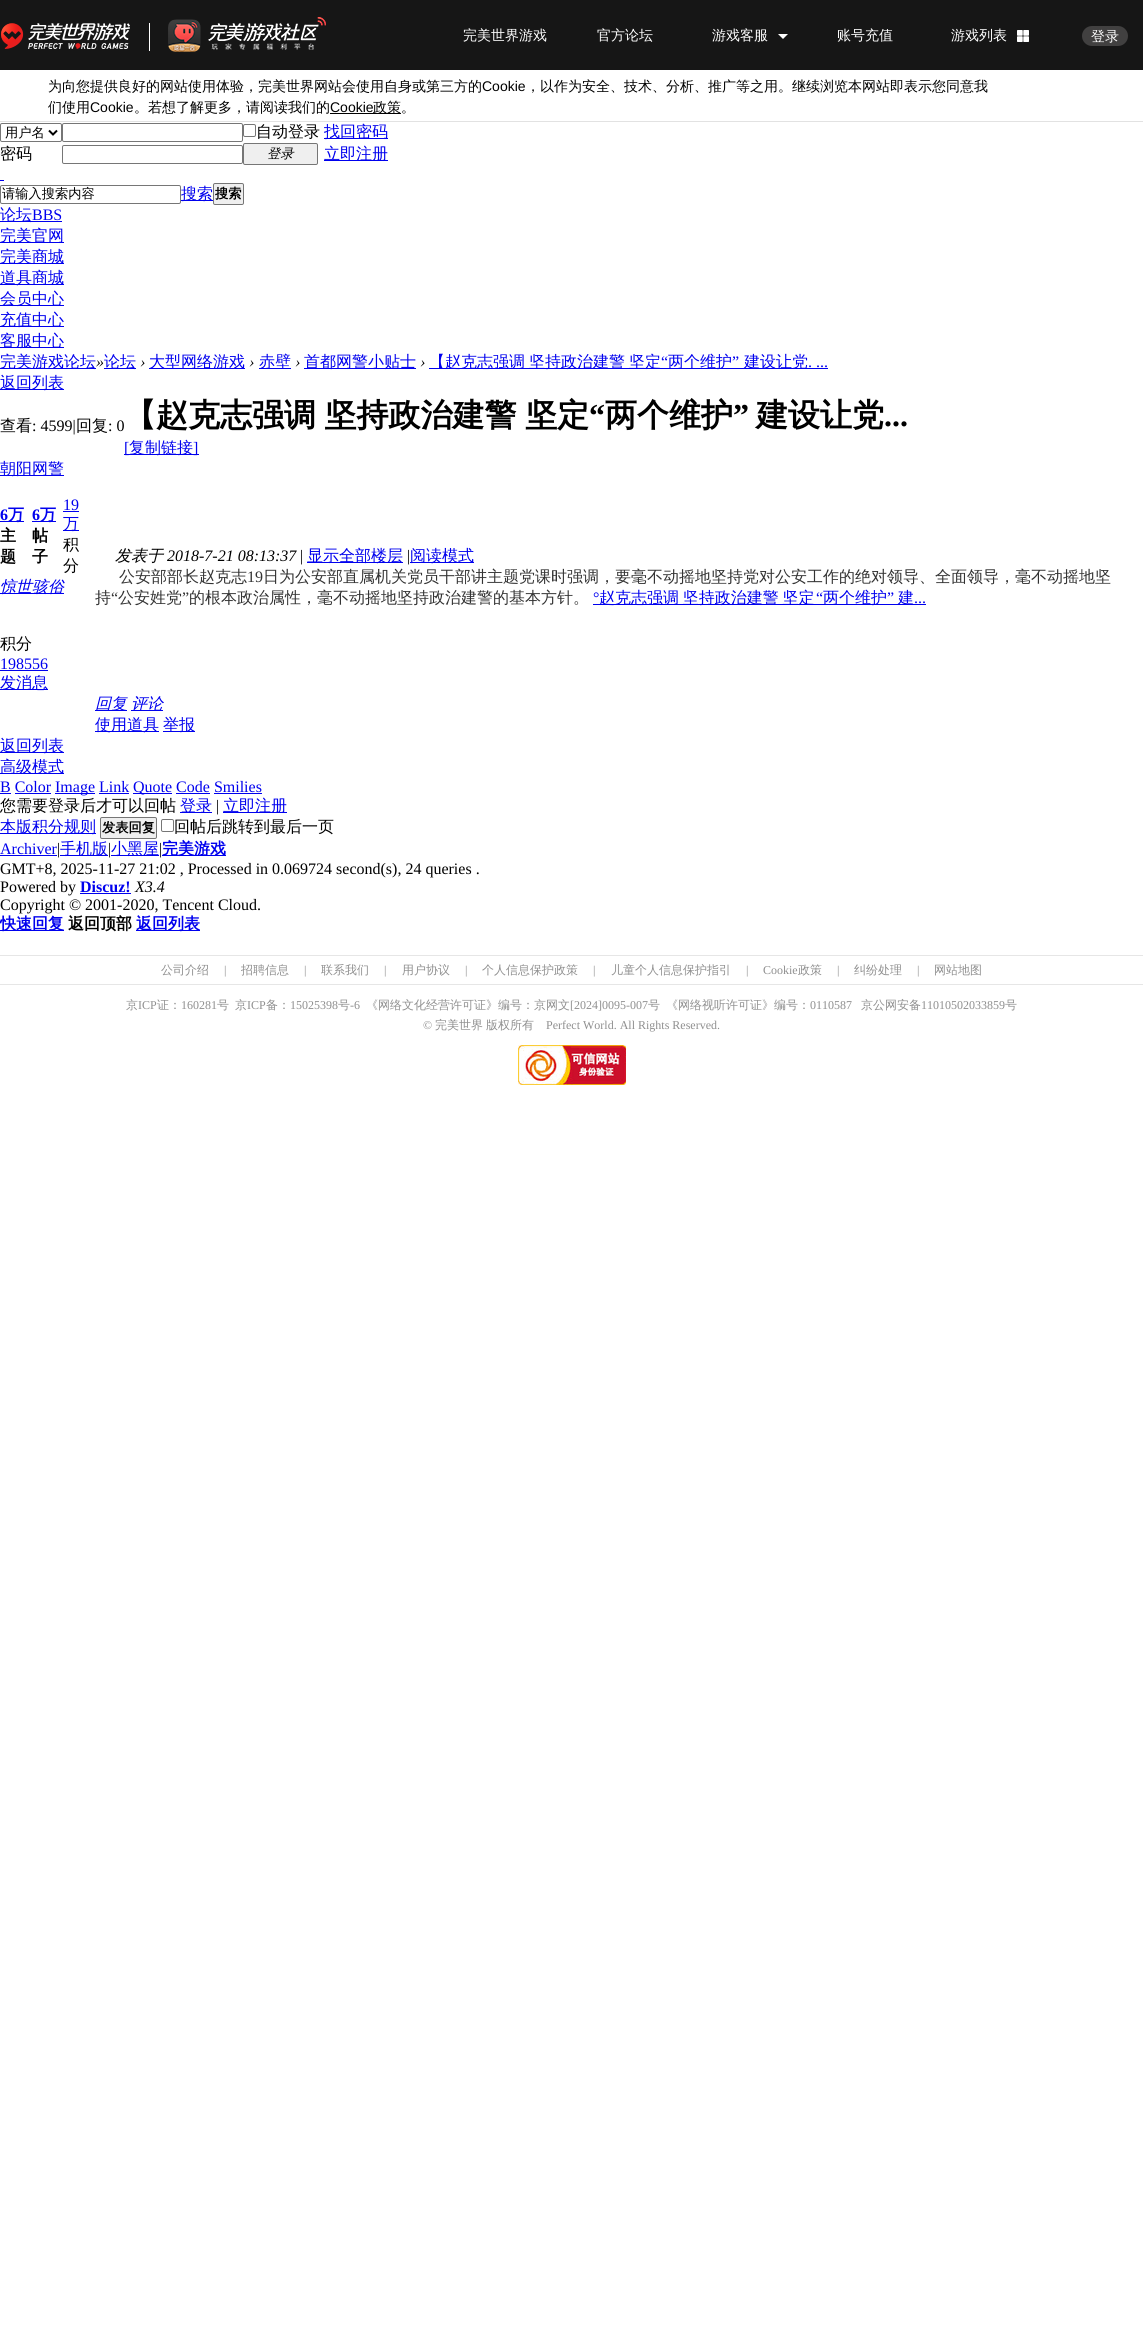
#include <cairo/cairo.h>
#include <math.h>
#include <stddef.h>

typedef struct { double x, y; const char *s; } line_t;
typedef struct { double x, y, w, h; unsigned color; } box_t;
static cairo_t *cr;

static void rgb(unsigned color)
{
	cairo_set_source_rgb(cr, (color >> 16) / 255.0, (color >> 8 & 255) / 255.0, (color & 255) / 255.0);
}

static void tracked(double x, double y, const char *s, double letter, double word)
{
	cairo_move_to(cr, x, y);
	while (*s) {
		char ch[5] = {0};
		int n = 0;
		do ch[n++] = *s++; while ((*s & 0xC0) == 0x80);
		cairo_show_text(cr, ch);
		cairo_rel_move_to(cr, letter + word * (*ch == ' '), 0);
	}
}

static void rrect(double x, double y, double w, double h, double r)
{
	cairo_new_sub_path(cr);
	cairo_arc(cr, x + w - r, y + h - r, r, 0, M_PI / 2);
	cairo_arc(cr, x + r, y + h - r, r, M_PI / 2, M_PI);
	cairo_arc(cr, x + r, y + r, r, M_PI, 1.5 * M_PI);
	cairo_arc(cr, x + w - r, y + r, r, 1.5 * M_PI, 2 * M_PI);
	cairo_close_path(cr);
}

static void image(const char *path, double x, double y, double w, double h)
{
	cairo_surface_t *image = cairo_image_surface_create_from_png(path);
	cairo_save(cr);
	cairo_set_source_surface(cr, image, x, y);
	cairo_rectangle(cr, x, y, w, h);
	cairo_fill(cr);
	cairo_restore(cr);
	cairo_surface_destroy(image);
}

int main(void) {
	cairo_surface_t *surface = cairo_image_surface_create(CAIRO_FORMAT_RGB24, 1143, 2333);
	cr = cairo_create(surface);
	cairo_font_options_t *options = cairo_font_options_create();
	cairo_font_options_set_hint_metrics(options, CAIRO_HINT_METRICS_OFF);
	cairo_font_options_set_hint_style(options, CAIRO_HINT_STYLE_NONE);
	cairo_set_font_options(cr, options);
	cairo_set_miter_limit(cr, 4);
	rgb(0xffffff);
	cairo_paint(cr);
	rgb(0x161616);
	cairo_rectangle(cr, 0, 0, 1143, 70);
	cairo_fill(cr);
	image("img/1.png", 1, 17, 325, 35);
	image("img/2.png", 778, 34, 10, 5);
	image("img/3.png", 1017, 30, 12, 12);
	rgb(0x414040);
	rrect(1082, 26, 46, 20, 10);
	cairo_fill(cr);
	rgb(0xe2e2e2);
	cairo_rectangle(cr, 0, 121, 1143, 1);
	cairo_fill(cr);
	rgb(0x000000);
	cairo_rectangle(cr, 330, 113, 71, 1);
	cairo_fill(cr);
	rrect(0.5, 123.5, 61, 18, 1.5);
	rgb(0x767676);
	cairo_set_line_width(cr, 1);
	cairo_stroke(cr);
	cairo_new_path(cr);
	cairo_move_to(cr, 49, 130.5);
	cairo_line_to(cr, 53, 134.5);
	cairo_line_to(cr, 57, 130.5);
	rgb(0x000000);
	cairo_set_line_width(cr, 2);
	cairo_stroke(cr);
	rrect(62.5, 123.5, 180, 18, 1.5);
	rgb(0x767676);
	cairo_set_line_width(cr, 1);
	cairo_stroke(cr);
	rrect(243.5, 124.5, 12, 12, 1.5);
	cairo_stroke(cr);
	rgb(0x0000ee);
	cairo_rectangle(cr, 324, 138, 64, 1);
	cairo_fill(cr);
	rrect(62.5, 145.5, 180, 18, 1.5);
	rgb(0x767676);
	cairo_stroke(cr);
	rgb(0xefefef);
	rrect(243.5, 143.5, 74, 21, 1.5);
	cairo_fill_preserve(cr);
	rgb(0x767676);
	cairo_stroke(cr);
	rgb(0x0000ee);
	cairo_rectangle(cr, 324, 160, 64, 1);
	cairo_fill(cr);
	cairo_rectangle(cr, 0, 180, 4, 1);
	cairo_fill(cr);
	rrect(0.5, 185.5, 180, 18, 1.5);
	rgb(0x767676);
	cairo_stroke(cr);
	rgb(0x0000ee);
	cairo_rectangle(cr, 181, 200, 32, 1);
	cairo_fill(cr);
	rgb(0xefefef);
	rrect(213.5, 183.5, 30, 21, 1.5);
	cairo_fill_preserve(cr);
	rgb(0x767676);
	cairo_stroke(cr);
	{
		static const box_t items[] = {
			{0, 221, 62, 1, 0x0000ee},
			{0, 242, 64, 1, 0x0000ee},
			{0, 263, 64, 1, 0x0000ee},
			{0, 284, 64, 1, 0x0000ee},
			{0, 305, 64, 1, 0x0000ee},
			{0, 326, 64, 1, 0x0000ee},
			{0, 347, 64, 1, 0x0000ee},
			{0, 368, 96, 1, 0x0000ee},
			{104, 368, 32, 1, 0x0000ee},
			{149, 368, 96, 1, 0x0000ee},
			{259, 368, 32, 1, 0x0000ee},
			{304, 368, 112, 1, 0x0000ee},
			{429, 368, 399, 1, 0x0000ee},
			{0, 389, 64, 1, 0x0000ee},
			{124, 454, 75, 1, 0x0000ee},
			{0, 475, 64, 1, 0x0000ee},
			{0, 521, 24, 1, 0x0000ee},
			{32, 521, 24, 1, 0x0000ee},
			{63, 511, 16, 1, 0x0000ee},
			{63, 530, 16, 1, 0x0000ee},
			{0, 593, 64, 1, 0x0000ee},
			{0, 670, 48, 1, 0x0000ee},
			{0, 689, 48, 1, 0x0000ee},
			{307, 562, 96, 1, 0x0000ee},
			{410, 562, 64, 1, 0x0000ee},
			{593, 604, 333, 1, 0x0000ee},
			{95, 710, 32, 1, 0x0000ee},
			{131, 710, 32, 1, 0x0000ee},
			{95, 731, 64, 1, 0x0000ee},
			{163, 731, 32, 1, 0x0000ee},
			{0, 752, 64, 1, 0x0000ee},
			{0, 773, 64, 1, 0x0000ee},
			{0, 793, 11, 1, 0x0000ee},
			{55, 793, 40, 1, 0x0000ee},
			{133, 793, 39, 1, 0x0000ee},
			{15, 793, 36, 1, 0x0000ee},
			{99, 793, 30, 1, 0x0000ee},
			{176, 793, 34, 1, 0x0000ee},
			{214, 793, 48, 1, 0x0000ee},
			{180, 812, 32, 1, 0x0000ee},
			{223, 812, 64, 1, 0x0000ee},
			{0, 833, 96, 1, 0x0000ee},
		};
		for (size_t i = 0; i < sizeof items / sizeof *items; i++) {
			rgb(items[i].color);
			cairo_rectangle(cr, items[i].x, items[i].y, items[i].w, items[i].h);
			cairo_fill(cr);
		}
	}
	rgb(0xefefef);
	rrect(100.5, 817.5, 56, 21, 1.5);
	cairo_fill_preserve(cr);
	rgb(0x767676);
	cairo_stroke(cr);
	rrect(161.5, 819.5, 12, 12, 1.5);
	cairo_stroke(cr);
	{
		static const box_t items[] = {
			{0, 855, 57, 1, 0x0000ee},
			{60, 855, 48, 1, 0x0000ee},
			{111, 855, 48, 1, 0x0000ee},
			{162, 855, 64, 1, 0x0000ee},
			{80, 893, 51, 1, 0x0000ee},
			{0, 930, 64, 1, 0x0000ee},
			{136, 930, 64, 1, 0x0000ee},
			{0, 955, 1143, 1, 0xe6e6e6},
			{0, 984, 1143, 1, 0xe6e6e6},
		};
		for (size_t i = 0; i < sizeof items / sizeof *items; i++) {
			rgb(items[i].color);
			cairo_rectangle(cr, items[i].x, items[i].y, items[i].w, items[i].h);
			cairo_fill(cr);
		}
	}
	image("img/4.png", 518, 1045, 108, 40);
	cairo_select_font_face(cr, "WenQuanYi Zen Hei Medium", CAIRO_FONT_SLANT_NORMAL, CAIRO_FONT_WEIGHT_NORMAL);
	cairo_set_font_size(cr, 14);
	rgb(0xffffff);
	{
		static const line_t items[] = {
			{463, 40, "完美世界游戏"},
			{597, 40, "官方论坛"},
			{712, 40, "游戏客服"},
			{837, 40, "账号充值"},
			{951, 40, "游戏列表"},
			{1091, 41, "登录"},
		};
		for (size_t i = 0; i < sizeof items / sizeof *items; i++) {
			cairo_move_to(cr, items[i].x, items[i].y);
			cairo_show_text(cr, items[i].s);
		}
	}
	rgb(0x000000);
	cairo_move_to(cr, 48, 91);
	cairo_show_text(cr, "为向您提供良好的网站使用体验，完美世界网站会使用自身或第三方的");
	cairo_select_font_face(cr, "Liberation Sans", CAIRO_FONT_SLANT_NORMAL, CAIRO_FONT_WEIGHT_NORMAL);
	cairo_move_to(cr, 482, 91);
	cairo_show_text(cr, "Cookie");
	cairo_select_font_face(cr, "WenQuanYi Zen Hei Medium", CAIRO_FONT_SLANT_NORMAL, CAIRO_FONT_WEIGHT_NORMAL);
	cairo_move_to(cr, 526, 91);
	cairo_show_text(cr, "，以作为安全、技术、分析、推广等之用。继续浏览本网站即表示您同意我");
	cairo_move_to(cr, 48, 112);
	cairo_show_text(cr, "们使用");
	cairo_select_font_face(cr, "Liberation Sans", CAIRO_FONT_SLANT_NORMAL, CAIRO_FONT_WEIGHT_NORMAL);
	cairo_move_to(cr, 90, 112);
	cairo_show_text(cr, "Cookie");
	cairo_select_font_face(cr, "WenQuanYi Zen Hei Medium", CAIRO_FONT_SLANT_NORMAL, CAIRO_FONT_WEIGHT_NORMAL);
	cairo_move_to(cr, 134, 112);
	cairo_show_text(cr, "。若想了解更多，请阅读我们的");
	cairo_select_font_face(cr, "Liberation Sans", CAIRO_FONT_SLANT_NORMAL, CAIRO_FONT_WEIGHT_NORMAL);
	cairo_move_to(cr, 330, 112);
	cairo_show_text(cr, "Cookie");
	cairo_select_font_face(cr, "WenQuanYi Zen Hei Medium", CAIRO_FONT_SLANT_NORMAL, CAIRO_FONT_WEIGHT_NORMAL);
	cairo_move_to(cr, 373, 112);
	cairo_show_text(cr, "政策。");
	cairo_set_font_size(cr, 13.25);
	cairo_move_to(cr, 5, 137);
	cairo_show_text(cr, "用户名");
	cairo_set_font_size(cr, 16);
	cairo_move_to(cr, 256, 137);
	cairo_show_text(cr, "自动登录");
	rgb(0x0000ee);
	cairo_move_to(cr, 324, 137);
	cairo_show_text(cr, "找回密码");
	rgb(0x000000);
	cairo_move_to(cr, 0, 159);
	cairo_show_text(cr, "密码");
	cairo_select_font_face(cr, "WenQuanYi Zen Hei Medium", CAIRO_FONT_SLANT_ITALIC, CAIRO_FONT_WEIGHT_NORMAL);
	cairo_set_font_size(cr, 13.25);
	cairo_move_to(cr, 267, 158);
	cairo_show_text(cr, "登录");
	cairo_select_font_face(cr, "WenQuanYi Zen Hei Medium", CAIRO_FONT_SLANT_NORMAL, CAIRO_FONT_WEIGHT_NORMAL);
	cairo_set_font_size(cr, 16);
	rgb(0x0000ee);
	cairo_move_to(cr, 324, 159);
	cairo_show_text(cr, "立即注册");
	cairo_set_font_size(cr, 13.25);
	rgb(0x000000);
	cairo_move_to(cr, 2, 198);
	cairo_show_text(cr, "请输入搜索内容");
	cairo_set_font_size(cr, 16);
	rgb(0x0000ee);
	cairo_move_to(cr, 181, 199);
	cairo_show_text(cr, "搜索");
	cairo_select_font_face(cr, "WenQuanYi Zen Hei", CAIRO_FONT_SLANT_NORMAL, CAIRO_FONT_WEIGHT_BOLD);
	cairo_set_font_size(cr, 13.25);
	rgb(0x000000);
	cairo_move_to(cr, 215, 198);
	cairo_show_text(cr, "搜索");
	cairo_select_font_face(cr, "WenQuanYi Zen Hei Medium", CAIRO_FONT_SLANT_NORMAL, CAIRO_FONT_WEIGHT_NORMAL);
	cairo_set_font_size(cr, 16);
	rgb(0x0000ee);
	cairo_move_to(cr, 0, 220);
	cairo_show_text(cr, "论坛");
	cairo_select_font_face(cr, "Liberation Serif", CAIRO_FONT_SLANT_NORMAL, CAIRO_FONT_WEIGHT_NORMAL);
	cairo_move_to(cr, 32, 220);
	cairo_show_text(cr, "BBS");
	cairo_select_font_face(cr, "WenQuanYi Zen Hei Medium", CAIRO_FONT_SLANT_NORMAL, CAIRO_FONT_WEIGHT_NORMAL);
	{
		static const line_t items[] = {
			{0, 241, "完美官网"},
			{0, 262, "完美商城"},
			{0, 283, "道具商城"},
			{0, 304, "会员中心"},
			{0, 325, "充值中心"},
			{0, 346, "客服中心"},
			{0, 367, "完美游戏论坛"},
			{104, 367, "论坛"},
			{149, 367, "大型网络游戏"},
			{259, 367, "赤壁"},
			{304, 367, "首都网警小贴士"},
			{429, 367, "【赵克志强调"},
			{529, 367, "坚持政治建警"},
			{629, 367, "坚定"},
		};
		for (size_t i = 0; i < sizeof items / sizeof *items; i++) {
			cairo_move_to(cr, items[i].x, items[i].y);
			cairo_show_text(cr, items[i].s);
		}
	}
	cairo_select_font_face(cr, "Liberation Serif", CAIRO_FONT_SLANT_NORMAL, CAIRO_FONT_WEIGHT_NORMAL);
	cairo_move_to(cr, 661, 367);
	cairo_show_text(cr, "“");
	cairo_select_font_face(cr, "WenQuanYi Zen Hei Medium", CAIRO_FONT_SLANT_NORMAL, CAIRO_FONT_WEIGHT_NORMAL);
	cairo_move_to(cr, 668, 367);
	cairo_show_text(cr, "两个维护");
	cairo_select_font_face(cr, "Liberation Serif", CAIRO_FONT_SLANT_NORMAL, CAIRO_FONT_WEIGHT_NORMAL);
	cairo_move_to(cr, 732, 367);
	cairo_show_text(cr, "”");
	cairo_select_font_face(cr, "WenQuanYi Zen Hei Medium", CAIRO_FONT_SLANT_NORMAL, CAIRO_FONT_WEIGHT_NORMAL);
	cairo_move_to(cr, 744, 367);
	cairo_show_text(cr, "建设让党");
	cairo_select_font_face(cr, "Liberation Serif", CAIRO_FONT_SLANT_ITALIC, CAIRO_FONT_WEIGHT_NORMAL);
	rgb(0x000000);
	{
		static const line_t items[] = {
			{96, 367, "»"},
			{140, 367, "›"},
			{249, 367, "›"},
			{295, 367, "›"},
			{420, 367, "›"},
		};
		for (size_t i = 0; i < sizeof items / sizeof *items; i++) {
			cairo_move_to(cr, items[i].x, items[i].y);
			cairo_show_text(cr, items[i].s);
		}
	}
	cairo_select_font_face(cr, "Liberation Serif", CAIRO_FONT_SLANT_NORMAL, CAIRO_FONT_WEIGHT_NORMAL);
	rgb(0x0000ee);
	cairo_move_to(cr, 808, 367);
	cairo_show_text(cr, ". ...");
	cairo_select_font_face(cr, "WenQuanYi Zen Hei Medium", CAIRO_FONT_SLANT_NORMAL, CAIRO_FONT_WEIGHT_NORMAL);
	cairo_move_to(cr, 0, 388);
	cairo_show_text(cr, "返回列表");
	rgb(0x000000);
	cairo_move_to(cr, 0, 431);
	cairo_show_text(cr, "查看");
	cairo_select_font_face(cr, "Liberation Serif", CAIRO_FONT_SLANT_NORMAL, CAIRO_FONT_WEIGHT_NORMAL);
	cairo_move_to(cr, 32, 431);
	cairo_show_text(cr, ": 4599|");
	cairo_select_font_face(cr, "WenQuanYi Zen Hei Medium", CAIRO_FONT_SLANT_NORMAL, CAIRO_FONT_WEIGHT_NORMAL);
	cairo_move_to(cr, 76, 431);
	cairo_show_text(cr, "回复");
	cairo_select_font_face(cr, "Liberation Serif", CAIRO_FONT_SLANT_NORMAL, CAIRO_FONT_WEIGHT_NORMAL);
	cairo_move_to(cr, 108, 431);
	cairo_show_text(cr, ": 0");
	cairo_select_font_face(cr, "WenQuanYi Zen Hei", CAIRO_FONT_SLANT_NORMAL, CAIRO_FONT_WEIGHT_BOLD);
	cairo_set_font_size(cr, 32);
	tracked(124, 426, "【赵克志强调 坚持政治建警 坚定", 0, -1);
	cairo_select_font_face(cr, "Liberation Serif", CAIRO_FONT_SLANT_NORMAL, CAIRO_FONT_WEIGHT_BOLD);
	cairo_move_to(cr, 589, 426);
	cairo_show_text(cr, "“");
	cairo_select_font_face(cr, "WenQuanYi Zen Hei", CAIRO_FONT_SLANT_NORMAL, CAIRO_FONT_WEIGHT_BOLD);
	cairo_move_to(cr, 605, 426);
	cairo_show_text(cr, "两个维护");
	cairo_select_font_face(cr, "Liberation Serif", CAIRO_FONT_SLANT_NORMAL, CAIRO_FONT_WEIGHT_BOLD);
	cairo_move_to(cr, 733, 426);
	cairo_show_text(cr, "”");
	cairo_select_font_face(cr, "WenQuanYi Zen Hei", CAIRO_FONT_SLANT_NORMAL, CAIRO_FONT_WEIGHT_BOLD);
	cairo_move_to(cr, 756, 426);
	cairo_show_text(cr, "建设让党");
	cairo_select_font_face(cr, "Liberation Serif", CAIRO_FONT_SLANT_NORMAL, CAIRO_FONT_WEIGHT_BOLD);
	cairo_move_to(cr, 884, 426);
	cairo_show_text(cr, "...");
	cairo_select_font_face(cr, "Liberation Serif", CAIRO_FONT_SLANT_NORMAL, CAIRO_FONT_WEIGHT_NORMAL);
	cairo_set_font_size(cr, 16);
	rgb(0x0000ee);
	cairo_move_to(cr, 124, 453);
	cairo_show_text(cr, "[");
	cairo_select_font_face(cr, "WenQuanYi Zen Hei Medium", CAIRO_FONT_SLANT_NORMAL, CAIRO_FONT_WEIGHT_NORMAL);
	cairo_move_to(cr, 129, 453);
	cairo_show_text(cr, "复制链接");
	cairo_select_font_face(cr, "Liberation Serif", CAIRO_FONT_SLANT_NORMAL, CAIRO_FONT_WEIGHT_NORMAL);
	cairo_move_to(cr, 193, 453);
	cairo_show_text(cr, "]");
	cairo_select_font_face(cr, "WenQuanYi Zen Hei Medium", CAIRO_FONT_SLANT_NORMAL, CAIRO_FONT_WEIGHT_NORMAL);
	cairo_move_to(cr, 0, 474);
	cairo_show_text(cr, "朝阳网警");
	cairo_select_font_face(cr, "Liberation Serif", CAIRO_FONT_SLANT_NORMAL, CAIRO_FONT_WEIGHT_BOLD);
	cairo_move_to(cr, 0, 520);
	cairo_show_text(cr, "6");
	cairo_select_font_face(cr, "WenQuanYi Zen Hei", CAIRO_FONT_SLANT_NORMAL, CAIRO_FONT_WEIGHT_BOLD);
	cairo_move_to(cr, 8, 520);
	cairo_show_text(cr, "万");
	rgb(0x000000);
	cairo_move_to(cr, 0, 541);
	cairo_show_text(cr, "主");
	cairo_move_to(cr, 0, 562);
	cairo_show_text(cr, "题");
	cairo_select_font_face(cr, "Liberation Serif", CAIRO_FONT_SLANT_NORMAL, CAIRO_FONT_WEIGHT_BOLD);
	rgb(0x0000ee);
	cairo_move_to(cr, 32, 520);
	cairo_show_text(cr, "6");
	cairo_select_font_face(cr, "WenQuanYi Zen Hei", CAIRO_FONT_SLANT_NORMAL, CAIRO_FONT_WEIGHT_BOLD);
	cairo_move_to(cr, 40, 520);
	cairo_show_text(cr, "万");
	rgb(0x000000);
	cairo_move_to(cr, 32, 541);
	cairo_show_text(cr, "帖");
	cairo_move_to(cr, 32, 562);
	cairo_show_text(cr, "子");
	cairo_select_font_face(cr, "Liberation Serif", CAIRO_FONT_SLANT_NORMAL, CAIRO_FONT_WEIGHT_NORMAL);
	rgb(0x0000ee);
	cairo_move_to(cr, 63, 510);
	cairo_show_text(cr, "19");
	cairo_select_font_face(cr, "WenQuanYi Zen Hei Medium", CAIRO_FONT_SLANT_NORMAL, CAIRO_FONT_WEIGHT_NORMAL);
	cairo_move_to(cr, 63, 529);
	cairo_show_text(cr, "万");
	rgb(0x000000);
	cairo_move_to(cr, 63, 550);
	cairo_show_text(cr, "积");
	cairo_move_to(cr, 63, 571);
	cairo_show_text(cr, "分");
	cairo_select_font_face(cr, "WenQuanYi Zen Hei Medium", CAIRO_FONT_SLANT_ITALIC, CAIRO_FONT_WEIGHT_NORMAL);
	rgb(0x0000ee);
	cairo_move_to(cr, 0, 592);
	cairo_show_text(cr, "惊世骇俗");
	cairo_select_font_face(cr, "WenQuanYi Zen Hei Medium", CAIRO_FONT_SLANT_NORMAL, CAIRO_FONT_WEIGHT_NORMAL);
	rgb(0x000000);
	cairo_move_to(cr, 0, 649);
	cairo_show_text(cr, "积分");
	cairo_select_font_face(cr, "Liberation Serif", CAIRO_FONT_SLANT_NORMAL, CAIRO_FONT_WEIGHT_NORMAL);
	rgb(0x0000ee);
	cairo_move_to(cr, 0, 669);
	cairo_show_text(cr, "198556");
	cairo_select_font_face(cr, "WenQuanYi Zen Hei Medium", CAIRO_FONT_SLANT_NORMAL, CAIRO_FONT_WEIGHT_NORMAL);
	cairo_move_to(cr, 0, 688);
	cairo_show_text(cr, "发消息");
	cairo_select_font_face(cr, "WenQuanYi Zen Hei Medium", CAIRO_FONT_SLANT_ITALIC, CAIRO_FONT_WEIGHT_NORMAL);
	rgb(0x000000);
	cairo_move_to(cr, 115, 561);
	cairo_show_text(cr, "发表于");
	cairo_select_font_face(cr, "Liberation Serif", CAIRO_FONT_SLANT_ITALIC, CAIRO_FONT_WEIGHT_NORMAL);
	cairo_move_to(cr, 167, 561);
	cairo_show_text(cr, "2018-7-21 08:13:37");
	cairo_select_font_face(cr, "Liberation Serif", CAIRO_FONT_SLANT_NORMAL, CAIRO_FONT_WEIGHT_NORMAL);
	cairo_move_to(cr, 300, 561);
	cairo_show_text(cr, "|");
	cairo_select_font_face(cr, "WenQuanYi Zen Hei Medium", CAIRO_FONT_SLANT_NORMAL, CAIRO_FONT_WEIGHT_NORMAL);
	rgb(0x0000ee);
	cairo_move_to(cr, 307, 561);
	cairo_show_text(cr, "显示全部楼层");
	cairo_select_font_face(cr, "Liberation Serif", CAIRO_FONT_SLANT_NORMAL, CAIRO_FONT_WEIGHT_NORMAL);
	rgb(0x000000);
	cairo_move_to(cr, 407, 561);
	cairo_show_text(cr, "|");
	cairo_select_font_face(cr, "WenQuanYi Zen Hei Medium", CAIRO_FONT_SLANT_NORMAL, CAIRO_FONT_WEIGHT_NORMAL);
	rgb(0x0000ee);
	cairo_move_to(cr, 410, 561);
	cairo_show_text(cr, "阅读模式");
	rgb(0x333333);
	cairo_move_to(cr, 119, 582);
	cairo_show_text(cr, "公安部部长赵克志");
	cairo_select_font_face(cr, "Liberation Serif", CAIRO_FONT_SLANT_NORMAL, CAIRO_FONT_WEIGHT_NORMAL);
	cairo_move_to(cr, 247, 582);
	cairo_show_text(cr, "19");
	cairo_select_font_face(cr, "WenQuanYi Zen Hei Medium", CAIRO_FONT_SLANT_NORMAL, CAIRO_FONT_WEIGHT_NORMAL);
	cairo_move_to(cr, 263, 582);
	cairo_show_text(cr, "日为公安部直属机关党员干部讲主题党课时强调，要毫不动摇地坚持党对公安工作的绝对领导、全面领导，毫不动摇地坚");
	cairo_move_to(cr, 95, 603);
	cairo_show_text(cr, "持");
	cairo_select_font_face(cr, "Liberation Serif", CAIRO_FONT_SLANT_NORMAL, CAIRO_FONT_WEIGHT_NORMAL);
	cairo_move_to(cr, 111, 603);
	cairo_show_text(cr, "“");
	cairo_select_font_face(cr, "WenQuanYi Zen Hei Medium", CAIRO_FONT_SLANT_NORMAL, CAIRO_FONT_WEIGHT_NORMAL);
	cairo_move_to(cr, 118, 603);
	cairo_show_text(cr, "公安姓党");
	cairo_select_font_face(cr, "Liberation Serif", CAIRO_FONT_SLANT_NORMAL, CAIRO_FONT_WEIGHT_NORMAL);
	cairo_move_to(cr, 182, 603);
	cairo_show_text(cr, "”");
	cairo_select_font_face(cr, "WenQuanYi Zen Hei Medium", CAIRO_FONT_SLANT_NORMAL, CAIRO_FONT_WEIGHT_NORMAL);
	cairo_move_to(cr, 189, 603);
	cairo_show_text(cr, "的根本政治属性，毫不动摇地坚持政治建警的基本方针。");
	cairo_select_font_face(cr, "Liberation Serif", CAIRO_FONT_SLANT_NORMAL, CAIRO_FONT_WEIGHT_NORMAL);
	rgb(0x0000ee);
	cairo_move_to(cr, 593, 603);
	cairo_show_text(cr, "°");
	cairo_select_font_face(cr, "WenQuanYi Zen Hei Medium", CAIRO_FONT_SLANT_NORMAL, CAIRO_FONT_WEIGHT_NORMAL);
	tracked(599, 603, "赵克志强调 坚持政治建警 坚定", 0, -1);
	cairo_select_font_face(cr, "Liberation Serif", CAIRO_FONT_SLANT_NORMAL, CAIRO_FONT_WEIGHT_NORMAL);
	cairo_move_to(cr, 816, 603);
	cairo_show_text(cr, "“");
	cairo_select_font_face(cr, "WenQuanYi Zen Hei Medium", CAIRO_FONT_SLANT_NORMAL, CAIRO_FONT_WEIGHT_NORMAL);
	cairo_move_to(cr, 823, 603);
	cairo_show_text(cr, "两个维护");
	cairo_select_font_face(cr, "Liberation Serif", CAIRO_FONT_SLANT_NORMAL, CAIRO_FONT_WEIGHT_NORMAL);
	cairo_move_to(cr, 887, 603);
	cairo_show_text(cr, "”");
	cairo_select_font_face(cr, "WenQuanYi Zen Hei Medium", CAIRO_FONT_SLANT_NORMAL, CAIRO_FONT_WEIGHT_NORMAL);
	cairo_move_to(cr, 898, 603);
	cairo_show_text(cr, "建");
	cairo_select_font_face(cr, "Liberation Serif", CAIRO_FONT_SLANT_NORMAL, CAIRO_FONT_WEIGHT_NORMAL);
	cairo_move_to(cr, 914, 603);
	cairo_show_text(cr, "...");
	cairo_select_font_face(cr, "WenQuanYi Zen Hei Medium", CAIRO_FONT_SLANT_ITALIC, CAIRO_FONT_WEIGHT_NORMAL);
	cairo_move_to(cr, 95, 709);
	cairo_show_text(cr, "回复");
	cairo_move_to(cr, 131, 709);
	cairo_show_text(cr, "评论");
	cairo_select_font_face(cr, "WenQuanYi Zen Hei Medium", CAIRO_FONT_SLANT_NORMAL, CAIRO_FONT_WEIGHT_NORMAL);
	{
		static const line_t items[] = {
			{95, 730, "使用道具"},
			{163, 730, "举报"},
			{0, 751, "返回列表"},
			{0, 772, "高级模式"},
		};
		for (size_t i = 0; i < sizeof items / sizeof *items; i++) {
			cairo_move_to(cr, items[i].x, items[i].y);
			cairo_show_text(cr, items[i].s);
		}
	}
	cairo_select_font_face(cr, "Liberation Serif", CAIRO_FONT_SLANT_NORMAL, CAIRO_FONT_WEIGHT_NORMAL);
	{
		static const line_t items[] = {
			{0, 792, "B Color"},
			{55, 792, "Image Link"},
			{133, 792, "Quote Code Smilies"},
		};
		for (size_t i = 0; i < sizeof items / sizeof *items; i++) {
			cairo_move_to(cr, items[i].x, items[i].y);
			cairo_show_text(cr, items[i].s);
		}
	}
	cairo_select_font_face(cr, "WenQuanYi Zen Hei Medium", CAIRO_FONT_SLANT_NORMAL, CAIRO_FONT_WEIGHT_NORMAL);
	rgb(0x000000);
	cairo_move_to(cr, 0, 811);
	cairo_show_text(cr, "您需要登录后才可以回帖");
	rgb(0x0000ee);
	cairo_move_to(cr, 180, 811);
	cairo_show_text(cr, "登录");
	cairo_select_font_face(cr, "Liberation Serif", CAIRO_FONT_SLANT_NORMAL, CAIRO_FONT_WEIGHT_NORMAL);
	rgb(0x000000);
	cairo_move_to(cr, 216, 811);
	cairo_show_text(cr, "|");
	cairo_select_font_face(cr, "WenQuanYi Zen Hei Medium", CAIRO_FONT_SLANT_NORMAL, CAIRO_FONT_WEIGHT_NORMAL);
	rgb(0x0000ee);
	cairo_move_to(cr, 223, 811);
	cairo_show_text(cr, "立即注册");
	cairo_move_to(cr, 0, 832);
	cairo_show_text(cr, "本版积分规则");
	cairo_select_font_face(cr, "WenQuanYi Zen Hei", CAIRO_FONT_SLANT_NORMAL, CAIRO_FONT_WEIGHT_BOLD);
	cairo_set_font_size(cr, 13.25);
	rgb(0x000000);
	cairo_move_to(cr, 102, 832);
	cairo_show_text(cr, "发表回复");
	cairo_select_font_face(cr, "WenQuanYi Zen Hei Medium", CAIRO_FONT_SLANT_NORMAL, CAIRO_FONT_WEIGHT_NORMAL);
	cairo_set_font_size(cr, 16);
	cairo_move_to(cr, 174, 832);
	cairo_show_text(cr, "回帖后跳转到最后一页");
	cairo_select_font_face(cr, "Liberation Serif", CAIRO_FONT_SLANT_NORMAL, CAIRO_FONT_WEIGHT_NORMAL);
	rgb(0x0000ee);
	cairo_move_to(cr, 0, 854);
	cairo_show_text(cr, "Archiver");
	rgb(0x000000);
	cairo_move_to(cr, 57, 854);
	cairo_show_text(cr, "|");
	cairo_select_font_face(cr, "WenQuanYi Zen Hei Medium", CAIRO_FONT_SLANT_NORMAL, CAIRO_FONT_WEIGHT_NORMAL);
	rgb(0x0000ee);
	cairo_move_to(cr, 60, 854);
	cairo_show_text(cr, "手机版");
	cairo_select_font_face(cr, "Liberation Serif", CAIRO_FONT_SLANT_NORMAL, CAIRO_FONT_WEIGHT_NORMAL);
	rgb(0x000000);
	cairo_move_to(cr, 108, 854);
	cairo_show_text(cr, "|");
	cairo_select_font_face(cr, "WenQuanYi Zen Hei Medium", CAIRO_FONT_SLANT_NORMAL, CAIRO_FONT_WEIGHT_NORMAL);
	rgb(0x0000ee);
	cairo_move_to(cr, 111, 854);
	cairo_show_text(cr, "小黑屋");
	cairo_select_font_face(cr, "Liberation Serif", CAIRO_FONT_SLANT_NORMAL, CAIRO_FONT_WEIGHT_NORMAL);
	rgb(0x000000);
	cairo_move_to(cr, 159, 854);
	cairo_show_text(cr, "|");
	cairo_select_font_face(cr, "WenQuanYi Zen Hei", CAIRO_FONT_SLANT_NORMAL, CAIRO_FONT_WEIGHT_BOLD);
	rgb(0x0000ee);
	cairo_move_to(cr, 162, 854);
	cairo_show_text(cr, "完美游戏");
	cairo_select_font_face(cr, "Liberation Serif", CAIRO_FONT_SLANT_NORMAL, CAIRO_FONT_WEIGHT_NORMAL);
	rgb(0x000000);
	cairo_move_to(cr, 0, 874);
	cairo_show_text(cr, "GMT+8, 2025-11-27 21:02 , Processed in 0.069724 second(s), 24 queries .");
	cairo_move_to(cr, 0, 892);
	cairo_show_text(cr, "Powered by");
	cairo_select_font_face(cr, "Liberation Serif", CAIRO_FONT_SLANT_NORMAL, CAIRO_FONT_WEIGHT_BOLD);
	rgb(0x0000ee);
	cairo_move_to(cr, 80, 892);
	cairo_show_text(cr, "Discuz!");
	cairo_select_font_face(cr, "Liberation Serif", CAIRO_FONT_SLANT_ITALIC, CAIRO_FONT_WEIGHT_NORMAL);
	rgb(0x000000);
	cairo_move_to(cr, 135, 892);
	cairo_show_text(cr, "X3.4");
	cairo_select_font_face(cr, "Liberation Serif", CAIRO_FONT_SLANT_NORMAL, CAIRO_FONT_WEIGHT_NORMAL);
	cairo_move_to(cr, 0, 910);
	cairo_show_text(cr, "Copyright © 2001-2020, Tencent Cloud.");
	cairo_select_font_face(cr, "WenQuanYi Zen Hei", CAIRO_FONT_SLANT_NORMAL, CAIRO_FONT_WEIGHT_BOLD);
	rgb(0x0000ee);
	cairo_move_to(cr, 0, 929);
	cairo_show_text(cr, "快速回复");
	rgb(0x000000);
	cairo_move_to(cr, 68, 929);
	cairo_show_text(cr, "返回顶部");
	rgb(0x0000ee);
	cairo_move_to(cr, 136, 929);
	cairo_show_text(cr, "返回列表");
	cairo_select_font_face(cr, "WenQuanYi Zen Hei Medium", CAIRO_FONT_SLANT_NORMAL, CAIRO_FONT_WEIGHT_NORMAL);
	cairo_set_font_size(cr, 12);
	rgb(0x8f8f8f);
	cairo_move_to(cr, 161, 974);
	cairo_show_text(cr, "公司介绍");
	cairo_select_font_face(cr, "Liberation Serif", CAIRO_FONT_SLANT_NORMAL, CAIRO_FONT_WEIGHT_NORMAL);
	cairo_move_to(cr, 224, 974);
	cairo_show_text(cr, "|");
	cairo_select_font_face(cr, "WenQuanYi Zen Hei Medium", CAIRO_FONT_SLANT_NORMAL, CAIRO_FONT_WEIGHT_NORMAL);
	cairo_move_to(cr, 241, 974);
	cairo_show_text(cr, "招聘信息");
	cairo_select_font_face(cr, "Liberation Serif", CAIRO_FONT_SLANT_NORMAL, CAIRO_FONT_WEIGHT_NORMAL);
	cairo_move_to(cr, 304, 974);
	cairo_show_text(cr, "|");
	cairo_select_font_face(cr, "WenQuanYi Zen Hei Medium", CAIRO_FONT_SLANT_NORMAL, CAIRO_FONT_WEIGHT_NORMAL);
	cairo_move_to(cr, 321, 974);
	cairo_show_text(cr, "联系我们");
	cairo_select_font_face(cr, "Liberation Serif", CAIRO_FONT_SLANT_NORMAL, CAIRO_FONT_WEIGHT_NORMAL);
	cairo_move_to(cr, 384, 974);
	cairo_show_text(cr, "|");
	cairo_select_font_face(cr, "WenQuanYi Zen Hei Medium", CAIRO_FONT_SLANT_NORMAL, CAIRO_FONT_WEIGHT_NORMAL);
	cairo_move_to(cr, 402, 974);
	cairo_show_text(cr, "用户协议");
	cairo_select_font_face(cr, "Liberation Serif", CAIRO_FONT_SLANT_NORMAL, CAIRO_FONT_WEIGHT_NORMAL);
	cairo_move_to(cr, 465, 974);
	cairo_show_text(cr, "|");
	cairo_select_font_face(cr, "WenQuanYi Zen Hei Medium", CAIRO_FONT_SLANT_NORMAL, CAIRO_FONT_WEIGHT_NORMAL);
	cairo_move_to(cr, 482, 974);
	cairo_show_text(cr, "个人信息保护政策");
	cairo_select_font_face(cr, "Liberation Serif", CAIRO_FONT_SLANT_NORMAL, CAIRO_FONT_WEIGHT_NORMAL);
	cairo_move_to(cr, 593, 974);
	cairo_show_text(cr, "|");
	cairo_select_font_face(cr, "WenQuanYi Zen Hei Medium", CAIRO_FONT_SLANT_NORMAL, CAIRO_FONT_WEIGHT_NORMAL);
	cairo_move_to(cr, 611, 974);
	cairo_show_text(cr, "儿童个人信息保护指引");
	cairo_select_font_face(cr, "Liberation Serif", CAIRO_FONT_SLANT_NORMAL, CAIRO_FONT_WEIGHT_NORMAL);
	cairo_move_to(cr, 746, 974);
	cairo_show_text(cr, "|");
	cairo_move_to(cr, 763, 974);
	cairo_show_text(cr, "Cookie");
	cairo_select_font_face(cr, "WenQuanYi Zen Hei Medium", CAIRO_FONT_SLANT_NORMAL, CAIRO_FONT_WEIGHT_NORMAL);
	cairo_move_to(cr, 798, 974);
	cairo_show_text(cr, "政策");
	cairo_select_font_face(cr, "Liberation Serif", CAIRO_FONT_SLANT_NORMAL, CAIRO_FONT_WEIGHT_NORMAL);
	cairo_move_to(cr, 837, 974);
	cairo_show_text(cr, "|");
	cairo_select_font_face(cr, "WenQuanYi Zen Hei Medium", CAIRO_FONT_SLANT_NORMAL, CAIRO_FONT_WEIGHT_NORMAL);
	cairo_move_to(cr, 854, 974);
	cairo_show_text(cr, "纠纷处理");
	cairo_select_font_face(cr, "Liberation Serif", CAIRO_FONT_SLANT_NORMAL, CAIRO_FONT_WEIGHT_NORMAL);
	cairo_move_to(cr, 917, 974);
	cairo_show_text(cr, "|");
	cairo_select_font_face(cr, "WenQuanYi Zen Hei Medium", CAIRO_FONT_SLANT_NORMAL, CAIRO_FONT_WEIGHT_NORMAL);
	cairo_move_to(cr, 934, 974);
	cairo_show_text(cr, "网站地图");
	cairo_move_to(cr, 126, 1009);
	cairo_show_text(cr, "京");
	cairo_select_font_face(cr, "Liberation Serif", CAIRO_FONT_SLANT_NORMAL, CAIRO_FONT_WEIGHT_NORMAL);
	cairo_move_to(cr, 138, 1009);
	cairo_show_text(cr, "ICP");
	cairo_select_font_face(cr, "WenQuanYi Zen Hei Medium", CAIRO_FONT_SLANT_NORMAL, CAIRO_FONT_WEIGHT_NORMAL);
	cairo_move_to(cr, 157, 1009);
	cairo_show_text(cr, "证：");
	cairo_select_font_face(cr, "Liberation Serif", CAIRO_FONT_SLANT_NORMAL, CAIRO_FONT_WEIGHT_NORMAL);
	cairo_move_to(cr, 181, 1009);
	cairo_show_text(cr, "160281");
	cairo_select_font_face(cr, "WenQuanYi Zen Hei Medium", CAIRO_FONT_SLANT_NORMAL, CAIRO_FONT_WEIGHT_NORMAL);
	cairo_move_to(cr, 217, 1009);
	cairo_show_text(cr, "号");
	cairo_move_to(cr, 235, 1009);
	cairo_show_text(cr, "京");
	cairo_select_font_face(cr, "Liberation Serif", CAIRO_FONT_SLANT_NORMAL, CAIRO_FONT_WEIGHT_NORMAL);
	cairo_move_to(cr, 247, 1009);
	cairo_show_text(cr, "ICP");
	cairo_select_font_face(cr, "WenQuanYi Zen Hei Medium", CAIRO_FONT_SLANT_NORMAL, CAIRO_FONT_WEIGHT_NORMAL);
	cairo_move_to(cr, 266, 1009);
	cairo_show_text(cr, "备：");
	cairo_select_font_face(cr, "Liberation Serif", CAIRO_FONT_SLANT_NORMAL, CAIRO_FONT_WEIGHT_NORMAL);
	cairo_move_to(cr, 290, 1009);
	cairo_show_text(cr, "15025398");
	cairo_select_font_face(cr, "WenQuanYi Zen Hei Medium", CAIRO_FONT_SLANT_NORMAL, CAIRO_FONT_WEIGHT_NORMAL);
	cairo_move_to(cr, 338, 1009);
	cairo_show_text(cr, "号");
	cairo_select_font_face(cr, "Liberation Serif", CAIRO_FONT_SLANT_NORMAL, CAIRO_FONT_WEIGHT_NORMAL);
	cairo_move_to(cr, 350, 1009);
	cairo_show_text(cr, "-6");
	cairo_select_font_face(cr, "WenQuanYi Zen Hei Medium", CAIRO_FONT_SLANT_NORMAL, CAIRO_FONT_WEIGHT_NORMAL);
	cairo_move_to(cr, 366, 1009);
	cairo_show_text(cr, "《网络文化经营许可证》编号：京网文");
	cairo_select_font_face(cr, "Liberation Serif", CAIRO_FONT_SLANT_NORMAL, CAIRO_FONT_WEIGHT_NORMAL);
	cairo_move_to(cr, 570, 1009);
	cairo_show_text(cr, "[2024]0095-007");
	cairo_select_font_face(cr, "WenQuanYi Zen Hei Medium", CAIRO_FONT_SLANT_NORMAL, CAIRO_FONT_WEIGHT_NORMAL);
	cairo_move_to(cr, 648, 1009);
	cairo_show_text(cr, "号");
	cairo_move_to(cr, 666, 1009);
	cairo_show_text(cr, "《网络视听许可证》编号：");
	cairo_select_font_face(cr, "Liberation Serif", CAIRO_FONT_SLANT_NORMAL, CAIRO_FONT_WEIGHT_NORMAL);
	cairo_move_to(cr, 810, 1009);
	cairo_show_text(cr, "0110587");
	cairo_select_font_face(cr, "WenQuanYi Zen Hei Medium", CAIRO_FONT_SLANT_NORMAL, CAIRO_FONT_WEIGHT_NORMAL);
	cairo_move_to(cr, 861, 1009);
	cairo_show_text(cr, "京公网安备");
	cairo_select_font_face(cr, "Liberation Serif", CAIRO_FONT_SLANT_NORMAL, CAIRO_FONT_WEIGHT_NORMAL);
	cairo_move_to(cr, 921, 1009);
	cairo_show_text(cr, "11010502033859");
	cairo_select_font_face(cr, "WenQuanYi Zen Hei Medium", CAIRO_FONT_SLANT_NORMAL, CAIRO_FONT_WEIGHT_NORMAL);
	cairo_move_to(cr, 1005, 1009);
	cairo_show_text(cr, "号");
	cairo_select_font_face(cr, "Liberation Serif", CAIRO_FONT_SLANT_NORMAL, CAIRO_FONT_WEIGHT_NORMAL);
	cairo_move_to(cr, 423, 1029);
	cairo_show_text(cr, "©");
	cairo_select_font_face(cr, "WenQuanYi Zen Hei Medium", CAIRO_FONT_SLANT_NORMAL, CAIRO_FONT_WEIGHT_NORMAL);
	cairo_move_to(cr, 435, 1029);
	cairo_show_text(cr, "完美世界");
	cairo_move_to(cr, 486, 1029);
	cairo_show_text(cr, "版权所有");
	cairo_select_font_face(cr, "Liberation Serif", CAIRO_FONT_SLANT_NORMAL, CAIRO_FONT_WEIGHT_NORMAL);
	cairo_move_to(cr, 546, 1029);
	cairo_show_text(cr, "Perfect World. All Rights Reserved.");
	cairo_surface_write_to_png(surface, "page.png");
	cairo_font_options_destroy(options);
	cairo_destroy(cr);
	cairo_surface_destroy(surface);
	return 0;
}
